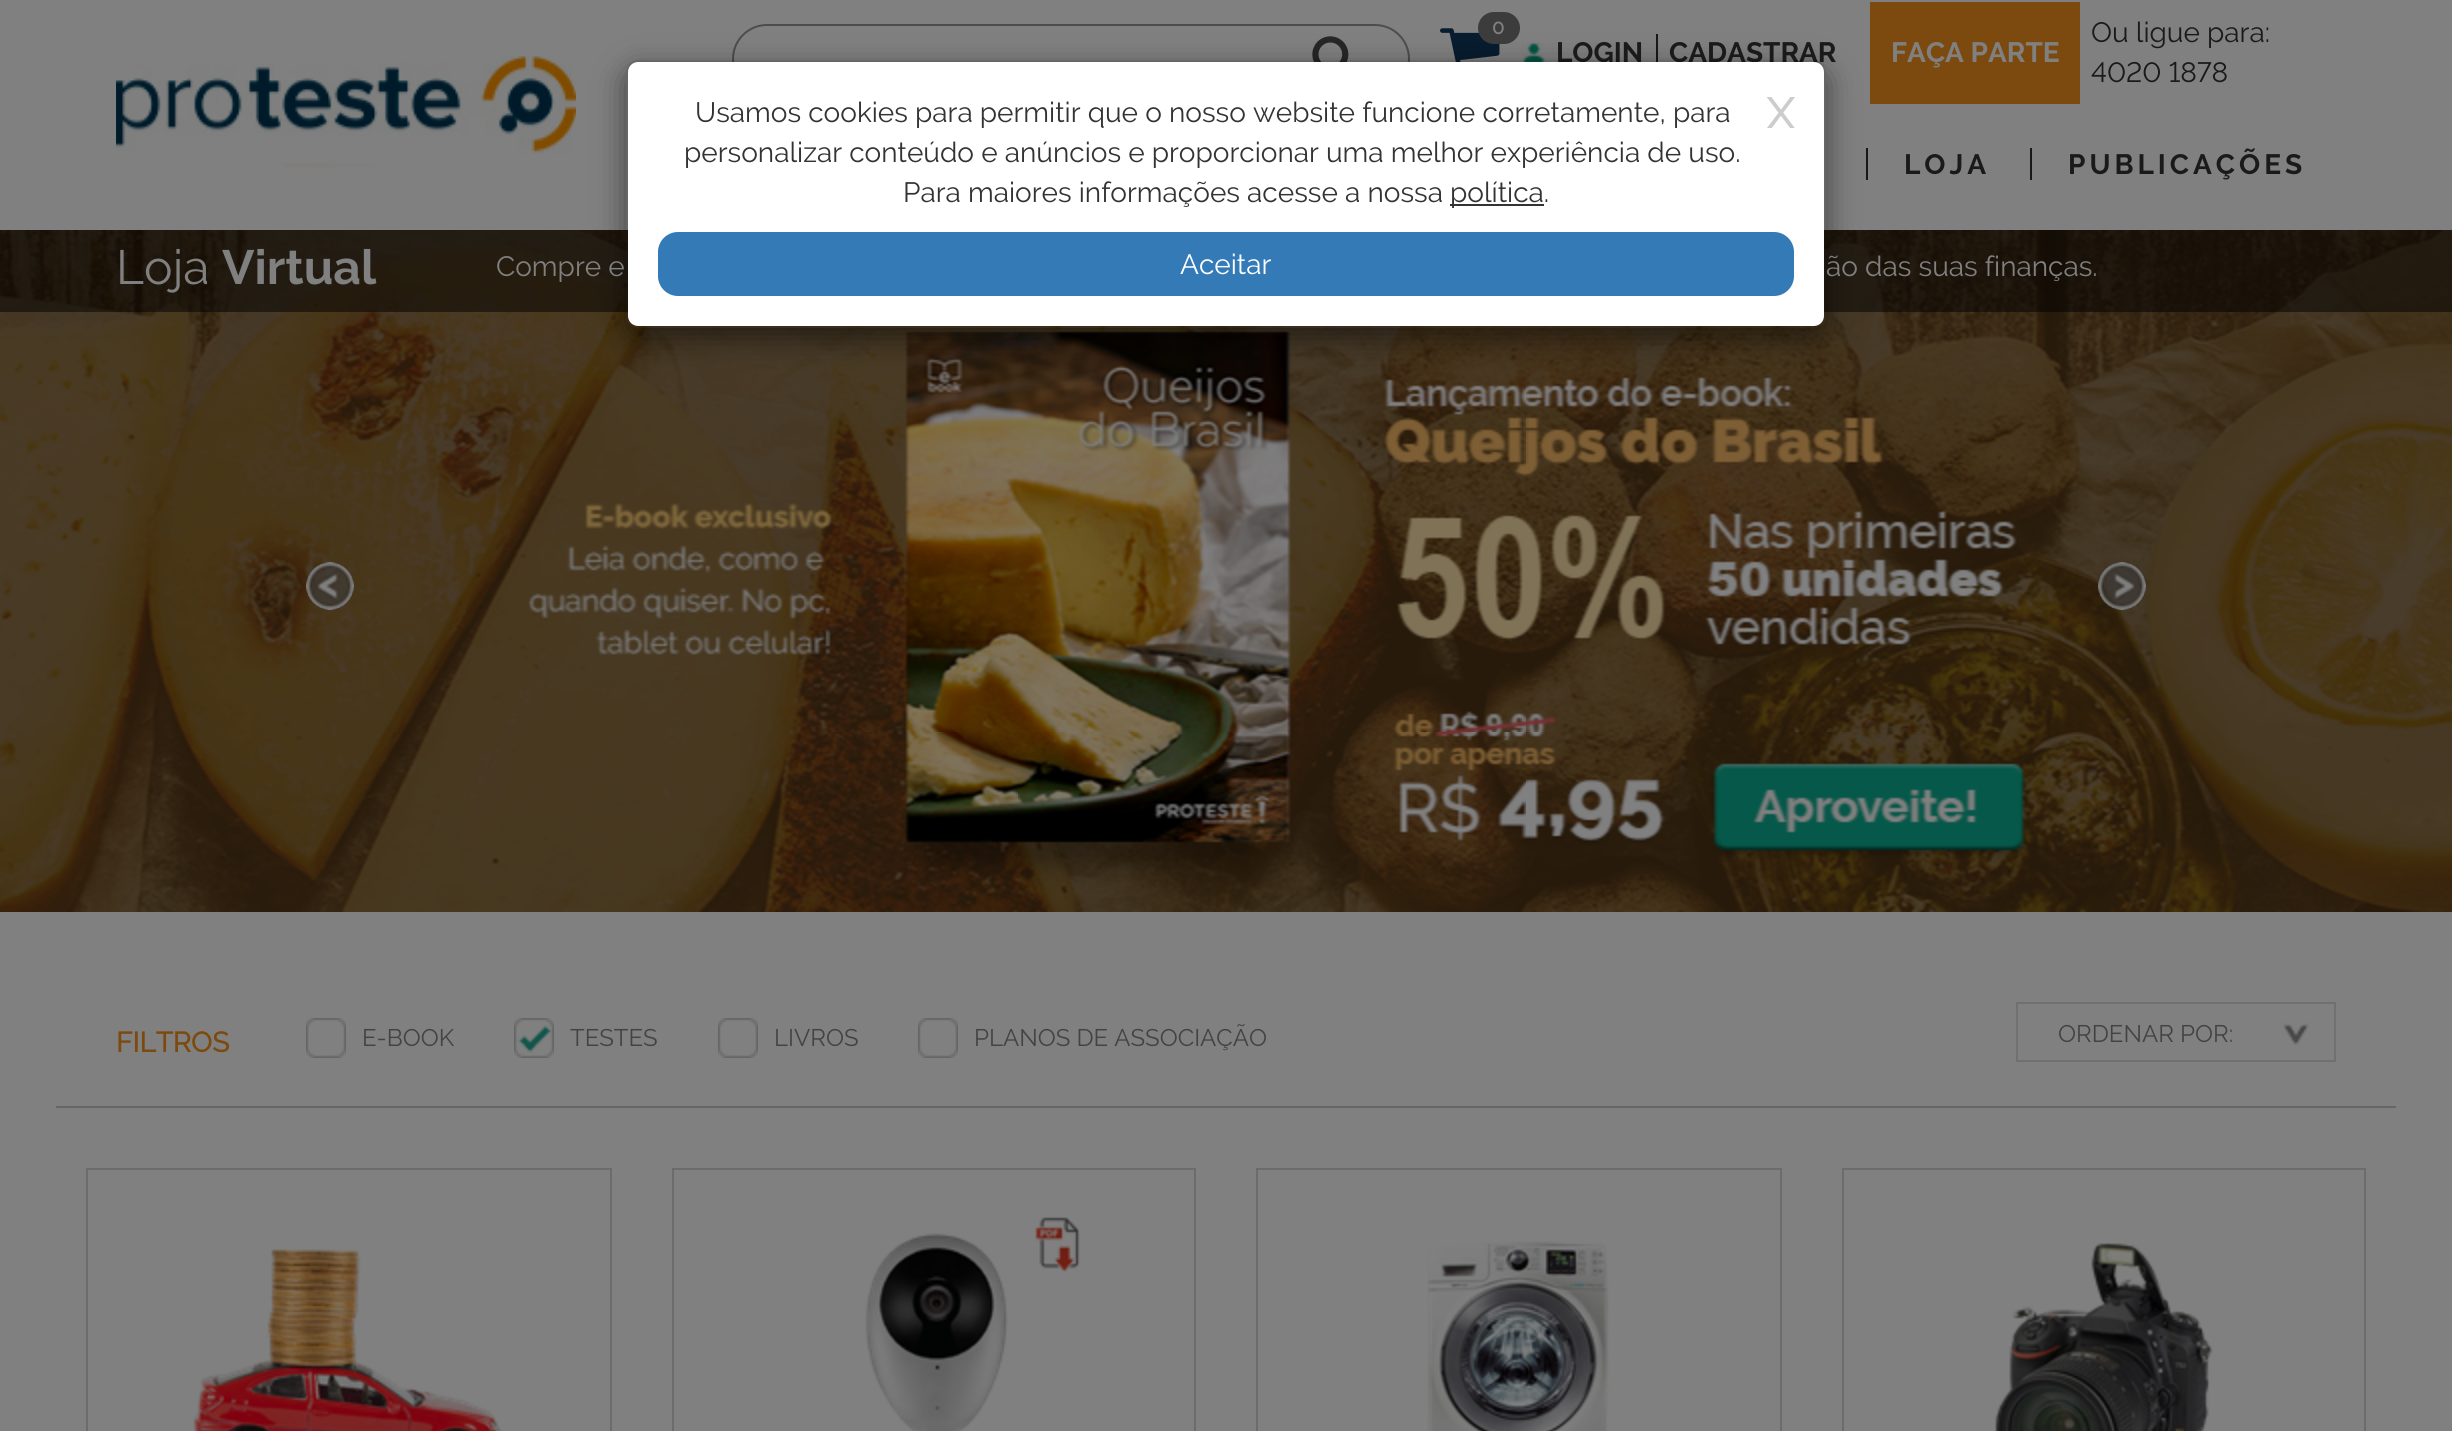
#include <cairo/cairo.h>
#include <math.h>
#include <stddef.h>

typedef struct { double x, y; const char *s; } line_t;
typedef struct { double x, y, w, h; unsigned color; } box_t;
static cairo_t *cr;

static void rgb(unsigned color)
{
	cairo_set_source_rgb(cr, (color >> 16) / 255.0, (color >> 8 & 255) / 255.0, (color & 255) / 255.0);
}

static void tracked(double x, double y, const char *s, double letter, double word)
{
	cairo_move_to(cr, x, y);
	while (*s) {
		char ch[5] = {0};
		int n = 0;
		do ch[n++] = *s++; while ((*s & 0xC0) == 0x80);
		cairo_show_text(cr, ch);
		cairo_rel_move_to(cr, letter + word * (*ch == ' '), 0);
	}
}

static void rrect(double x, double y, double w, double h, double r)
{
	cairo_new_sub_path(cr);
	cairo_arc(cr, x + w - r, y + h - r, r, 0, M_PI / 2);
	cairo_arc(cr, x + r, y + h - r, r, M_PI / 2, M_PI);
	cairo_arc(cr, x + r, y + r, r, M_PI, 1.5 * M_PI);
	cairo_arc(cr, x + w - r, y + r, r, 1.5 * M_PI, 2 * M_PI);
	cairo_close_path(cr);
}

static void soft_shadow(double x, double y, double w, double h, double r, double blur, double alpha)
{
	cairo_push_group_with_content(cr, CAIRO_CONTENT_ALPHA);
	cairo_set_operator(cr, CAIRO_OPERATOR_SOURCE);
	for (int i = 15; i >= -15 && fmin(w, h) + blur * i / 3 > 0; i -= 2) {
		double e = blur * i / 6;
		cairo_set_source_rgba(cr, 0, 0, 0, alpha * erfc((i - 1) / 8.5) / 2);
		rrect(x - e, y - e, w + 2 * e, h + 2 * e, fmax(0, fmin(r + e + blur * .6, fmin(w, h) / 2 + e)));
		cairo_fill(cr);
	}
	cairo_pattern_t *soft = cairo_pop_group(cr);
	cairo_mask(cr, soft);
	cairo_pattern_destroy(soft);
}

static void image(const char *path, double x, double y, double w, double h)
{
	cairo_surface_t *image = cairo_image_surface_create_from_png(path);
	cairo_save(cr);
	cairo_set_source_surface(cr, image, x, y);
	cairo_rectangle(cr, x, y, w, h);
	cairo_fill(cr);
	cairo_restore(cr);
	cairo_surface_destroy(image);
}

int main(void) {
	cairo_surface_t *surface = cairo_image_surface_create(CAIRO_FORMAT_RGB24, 2452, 1431);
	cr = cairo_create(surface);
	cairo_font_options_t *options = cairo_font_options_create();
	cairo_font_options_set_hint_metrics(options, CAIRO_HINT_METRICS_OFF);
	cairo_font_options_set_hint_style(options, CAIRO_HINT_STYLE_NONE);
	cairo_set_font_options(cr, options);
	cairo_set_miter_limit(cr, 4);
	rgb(0x808080);
	cairo_paint(cr);
	rrect(733, 25, 676, 68, 34);
	rgb(0x4d4d4d);
	cairo_stroke(cr);
	rgb(0x808080);
	cairo_rectangle(cr, 764, 26, 2, 1);
	cairo_fill(cr);
	image("img/2.png", 1312, 36, 37, 26);
	image("img/3.png", 1440, 28, 60, 34);
	rgb(0x3c3c3c);
	rrect(1478, 12, 42, 32, 16);
	cairo_fill(cr);
	image("img/4.png", 1522, 42, 23, 20);
	{
		static const box_t items[] = {
			{1656, 34, 2, 36, 0x181818},
			{1870, 2, 210, 102, 0x7c4a0f},
			{1866, 148, 2, 32, 0x181818},
		};
		for (size_t i = 0; i < sizeof items / sizeof *items; i++) {
			rgb(items[i].color);
			cairo_rectangle(cr, items[i].x, items[i].y, items[i].w, items[i].h);
			cairo_fill(cr);
		}
	}
	image("img/5.png", 0, 230, 2452, 682);
	cairo_set_source_rgba(cr, 0, 0, 0, 0.5);
	cairo_rectangle(cr, 0, 230, 2452, 82);
	cairo_fill(cr);
	cairo_save(cr);
	cairo_set_fill_rule(cr, CAIRO_FILL_RULE_EVEN_ODD);
	cairo_new_path(cr);
	cairo_move_to(cr, 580, 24);
	cairo_line_to(cr, 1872, 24);
	cairo_line_to(cr, 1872, 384);
	cairo_line_to(cr, 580, 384);
	cairo_close_path(cr);
	cairo_move_to(cr, 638, 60);
	cairo_line_to(cr, 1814, 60);
	cairo_curve_to(cr, 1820.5, 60, 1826, 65.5, 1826, 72);
	cairo_line_to(cr, 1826, 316);
	cairo_curve_to(cr, 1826, 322.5, 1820.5, 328, 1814, 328);
	cairo_line_to(cr, 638, 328);
	cairo_curve_to(cr, 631.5, 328, 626, 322.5, 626, 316);
	cairo_line_to(cr, 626, 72);
	cairo_curve_to(cr, 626, 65.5, 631.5, 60, 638, 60);
	cairo_close_path(cr);
	cairo_clip(cr);
	rgb(0x000000);
	soft_shadow(626, 70, 1200, 268, 12, 15, 0.5);
	cairo_restore(cr);
	image("img/1.png", 116, 56, 460, 112);
	rgb(0x181818);
	cairo_rectangle(cr, 2030, 148, 2, 32);
	cairo_fill(cr);
	cairo_set_source_rgba(cr, 0, 0, 0, 0.5);
	cairo_arc(cr, 330, 586, 24, 0, 2 * M_PI);
	cairo_fill(cr);
	image("img/6.png", 306, 562, 48, 48);
	cairo_arc(cr, 2122, 586, 24, 0, 2 * M_PI);
	cairo_fill(cr);
	image("img/7.png", 2098, 562, 48, 48);
	rgb(0x666666);
	cairo_rectangle(cr, 56, 1106, 2340, 2);
	cairo_fill(cr);
	image("img/8.png", 306, 1018, 40, 40);
	image("img/9.png", 514, 1018, 40, 40);
	image("img/8.png", 718, 1018, 40, 40);
	image("img/8.png", 918, 1018, 40, 40);
	image("img/10.png", 2283, 1023, 26, 22);
	cairo_rectangle(cr, 2017, 1003, 318, 58);
	rgb(0x707070);
	cairo_stroke(cr);
	cairo_rectangle(cr, 87, 1169, 524, 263);
	rgb(0x6c6c6c);
	cairo_stroke(cr);
	image("img/11.png", 193, 1249, 310, 182);
	cairo_rectangle(cr, 673, 1169, 522, 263);
	cairo_stroke(cr);
	image("img/12.png", 865, 1217, 215, 214);
	cairo_rectangle(cr, 1257, 1169, 524, 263);
	cairo_stroke(cr);
	image("img/13.png", 1427, 1241, 182, 190);
	cairo_rectangle(cr, 1843, 1169, 522, 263);
	cairo_stroke(cr);
	image("img/14.png", 1995, 1242, 218, 189);
	cairo_select_font_face(cr, "Raleway", CAIRO_FONT_SLANT_NORMAL, CAIRO_FONT_WEIGHT_BOLD);
	cairo_set_font_size(cr, 20);
	rgb(0x808080);
	cairo_move_to(cr, 1492, 34);
	cairo_show_text(cr, "0");
	cairo_select_font_face(cr, "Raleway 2", CAIRO_FONT_SLANT_NORMAL, CAIRO_FONT_WEIGHT_BOLD);
	cairo_set_font_size(cr, 28);
	rgb(0x1a1a1a);
	cairo_move_to(cr, 1556, 62);
	cairo_show_text(cr, "LOGIN");
	cairo_move_to(cr, 1669, 62);
	cairo_show_text(cr, "CADASTRAR");
	rgb(0xffffff);
	rrect(628, 62, 1196, 264, 10);
	cairo_fill(cr);
	rrect(627, 61, 1198, 266, 11);
	cairo_set_source_rgba(cr, 0, 0, 0, 0.2);
	cairo_stroke(cr);
	cairo_select_font_face(cr, "Raleway", CAIRO_FONT_SLANT_NORMAL, CAIRO_FONT_WEIGHT_BOLD);
	cairo_set_font_size(cr, 42);
	rgb(0xcccccc);
	cairo_move_to(cr, 1767, 128);
	cairo_show_text(cr, "X");
	rgb(0x337ab7);
	rrect(658, 232, 1136, 64, 20);
	cairo_fill(cr);
	cairo_select_font_face(cr, "Raleway", CAIRO_FONT_SLANT_NORMAL, CAIRO_FONT_WEIGHT_NORMAL);
	cairo_set_font_size(cr, 28);
	rgb(0xffffff);
	cairo_move_to(cr, 1180, 274);
	cairo_show_text(cr, "Aceitar");
	rgb(0x333333);
	cairo_rectangle(cr, 1450, 204, 94, 2);
	cairo_fill(cr);
	{
		static const line_t items[] = {
			{1450, 202, "política."},
			{903, 202, "Para maiores informações acesse a nossa"},
			{684, 162, "personalizar conteúdo e anúncios e proporcionar uma melhor experiência de uso."},
			{695, 122, "Usamos cookies para permitir que o nosso website funcione corretamente, para"},
		};
		for (size_t i = 0; i < sizeof items / sizeof *items; i++) {
			cairo_move_to(cr, items[i].x, items[i].y);
			cairo_show_text(cr, items[i].s);
		}
	}
	cairo_select_font_face(cr, "Raleway 2", CAIRO_FONT_SLANT_NORMAL, CAIRO_FONT_WEIGHT_BOLD);
	rgb(0x808080);
	cairo_move_to(cr, 1891, 62);
	cairo_show_text(cr, "FAÇA PARTE");
	cairo_select_font_face(cr, "Raleway", CAIRO_FONT_SLANT_NORMAL, CAIRO_FONT_WEIGHT_NORMAL);
	rgb(0x1a1a1a);
	cairo_move_to(cr, 2091, 42);
	cairo_show_text(cr, "Ou ligue para:");
	cairo_select_font_face(cr, "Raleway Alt", CAIRO_FONT_SLANT_NORMAL, CAIRO_FONT_WEIGHT_NORMAL);
	cairo_move_to(cr, 2091, 82);
	cairo_show_text(cr, "4020 1878");
	cairo_select_font_face(cr, "Raleway 2", CAIRO_FONT_SLANT_NORMAL, CAIRO_FONT_WEIGHT_BOLD);
	tracked(1904, 174, "LOJA", 4, 0);
	tracked(2068, 174, "PUBLICAÇÕES", 4, 0);
	cairo_select_font_face(cr, "Raleway", CAIRO_FONT_SLANT_NORMAL, CAIRO_FONT_WEIGHT_NORMAL);
	cairo_set_font_size(cr, 48);
	rgb(0x808080);
	cairo_move_to(cr, 116, 284);
	cairo_show_text(cr, "Loja");
	cairo_select_font_face(cr, "Raleway 2", CAIRO_FONT_SLANT_NORMAL, CAIRO_FONT_WEIGHT_BOLD);
	cairo_move_to(cr, 222, 284);
	cairo_show_text(cr, "Virtual");
	cairo_select_font_face(cr, "Raleway", CAIRO_FONT_SLANT_NORMAL, CAIRO_FONT_WEIGHT_NORMAL);
	cairo_set_font_size(cr, 28);
	cairo_move_to(cr, 496, 276);
	cairo_show_text(cr, "Compre e");
	cairo_move_to(cr, 1826, 276);
	cairo_show_text(cr, "ão das suas finanças.");
	cairo_select_font_face(cr, "Raleway", CAIRO_FONT_SLANT_NORMAL, CAIRO_FONT_WEIGHT_BOLD);
	rgb(0x7c4a0f);
	cairo_move_to(cr, 116, 1052);
	cairo_show_text(cr, "FILTROS");
	cairo_select_font_face(cr, "Raleway", CAIRO_FONT_SLANT_NORMAL, CAIRO_FONT_WEIGHT_NORMAL);
	cairo_set_font_size(cr, 24);
	rgb(0x434343);
	{
		static const line_t items[] = {
			{362, 1046, "E-BOOK"},
			{570, 1046, "TESTES"},
			{774, 1046, "LIVROS"},
			{974, 1046, "PLANOS DE ASSOCIAÇÃO"},
			{2058, 1042, "ORDENAR POR:"},
		};
		for (size_t i = 0; i < sizeof items / sizeof *items; i++) {
			cairo_move_to(cr, items[i].x, items[i].y);
			cairo_show_text(cr, items[i].s);
		}
	}
	cairo_surface_write_to_png(surface, "page.png");
	cairo_font_options_destroy(options);
	cairo_destroy(cr);
	cairo_surface_destroy(surface);
	return 0;
}
